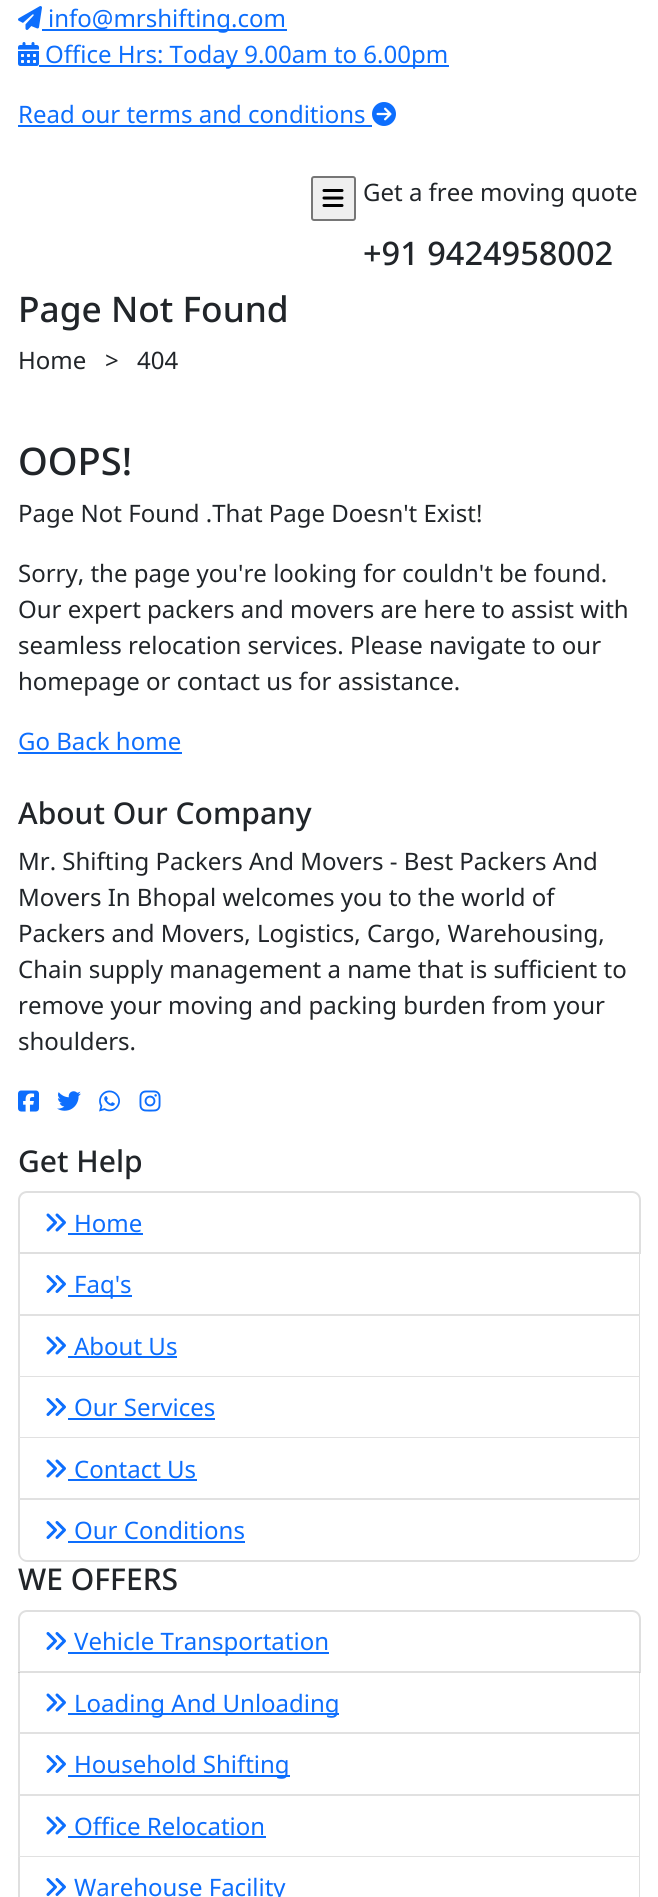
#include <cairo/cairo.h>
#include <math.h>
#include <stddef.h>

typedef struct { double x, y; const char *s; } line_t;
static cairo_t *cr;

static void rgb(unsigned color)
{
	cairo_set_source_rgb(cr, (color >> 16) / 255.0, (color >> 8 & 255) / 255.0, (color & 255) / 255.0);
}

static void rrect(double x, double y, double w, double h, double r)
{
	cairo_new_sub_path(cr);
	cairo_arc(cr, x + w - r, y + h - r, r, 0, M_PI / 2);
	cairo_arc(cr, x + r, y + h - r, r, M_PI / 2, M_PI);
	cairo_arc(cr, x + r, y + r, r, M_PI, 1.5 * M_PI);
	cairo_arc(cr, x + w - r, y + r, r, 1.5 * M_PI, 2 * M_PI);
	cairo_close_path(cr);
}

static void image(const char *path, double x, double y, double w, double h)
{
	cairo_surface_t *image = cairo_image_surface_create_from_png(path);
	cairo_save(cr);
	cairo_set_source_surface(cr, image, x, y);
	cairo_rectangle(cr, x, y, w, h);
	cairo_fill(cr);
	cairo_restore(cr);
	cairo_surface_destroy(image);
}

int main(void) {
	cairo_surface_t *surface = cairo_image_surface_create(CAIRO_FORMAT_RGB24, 658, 1897);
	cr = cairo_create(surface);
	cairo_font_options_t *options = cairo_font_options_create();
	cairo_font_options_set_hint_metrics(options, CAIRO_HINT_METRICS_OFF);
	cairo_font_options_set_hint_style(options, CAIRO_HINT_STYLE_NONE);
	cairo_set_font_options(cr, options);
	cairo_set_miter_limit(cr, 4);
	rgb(0xffffff);
	cairo_paint(cr);
	image("img/1.png", 18, 6, 24, 24);
	rgb(0x0d6efd);
	cairo_rectangle(cr, 42, 29, 245, 2);
	cairo_fill(cr);
	image("img/2.png", 18, 42, 21, 24);
	cairo_rectangle(cr, 39, 65, 410, 2);
	cairo_fill(cr);
	cairo_rectangle(cr, 18, 125, 354, 2);
	cairo_fill(cr);
	image("img/3.png", 372, 102, 24, 24);
	rgb(0xefefef);
	rrect(312, 177, 43, 43, 2);
	cairo_fill_preserve(cr);
	rgb(0x767676);
	cairo_stroke(cr);
	image("img/4.png", 322, 189, 22, 18);
	rgb(0x0d6efd);
	cairo_rectangle(cr, 18, 752, 164, 2);
	cairo_fill(cr);
	image("img/5.png", 18, 1090, 21, 22);
	image("img/6.png", 57, 1091, 24, 20);
	image("img/7.png", 99, 1090, 21, 22);
	image("img/8.png", 139, 1090, 22, 22);
	cairo_new_path(cr);
	cairo_move_to(cr, 27, 1192);
	cairo_line_to(cr, 632, 1192);
	cairo_curve_to(cr, 636.5, 1192, 640, 1195.5, 640, 1200);
	cairo_line_to(cr, 640, 1253);
	cairo_line_to(cr, 19, 1253);
	cairo_line_to(cr, 19, 1200);
	cairo_curve_to(cr, 19, 1195.5, 22.5, 1192, 27, 1192);
	cairo_close_path(cr);
	rgb(0xdfdfdf);
	cairo_stroke(cr);
	image("img/9.png", 46, 1213, 20, 19);
	rgb(0x0d6efd);
	cairo_rectangle(cr, 68, 1233, 75, 2);
	cairo_fill(cr);
	rgb(0xdfdfdf);
	cairo_new_path(cr);
	cairo_move_to(cr, 640, 1254);
	cairo_line_to(cr, 640, 1316);
	cairo_line_to(cr, 639, 1314);
	cairo_line_to(cr, 639, 1254);
	cairo_close_path(cr);
	cairo_fill(cr);
	cairo_set_source_rgba(cr, 0, 0, 0, 0.12);
	cairo_new_path(cr);
	cairo_move_to(cr, 640, 1316);
	cairo_line_to(cr, 18, 1316);
	cairo_line_to(cr, 20, 1314);
	cairo_line_to(cr, 639, 1314);
	cairo_close_path(cr);
	cairo_fill(cr);
	cairo_new_path(cr);
	cairo_move_to(cr, 18, 1316);
	cairo_line_to(cr, 18, 1254);
	cairo_line_to(cr, 20, 1254);
	cairo_line_to(cr, 20, 1314);
	cairo_close_path(cr);
	cairo_fill(cr);
	image("img/10.png", 46, 1275, 20, 18);
	rgb(0x0d6efd);
	cairo_rectangle(cr, 68, 1295, 64, 2);
	cairo_fill(cr);
	rgb(0xdfdfdf);
	cairo_new_path(cr);
	cairo_move_to(cr, 640, 1316);
	cairo_line_to(cr, 640, 1377);
	cairo_line_to(cr, 639, 1376);
	cairo_line_to(cr, 639, 1316);
	cairo_close_path(cr);
	cairo_fill(cr);
	cairo_set_source_rgba(cr, 0, 0, 0, 0.12);
	cairo_new_path(cr);
	cairo_move_to(cr, 640, 1377);
	cairo_line_to(cr, 18, 1377);
	cairo_line_to(cr, 20, 1376);
	cairo_line_to(cr, 639, 1376);
	cairo_close_path(cr);
	cairo_fill(cr);
	cairo_new_path(cr);
	cairo_move_to(cr, 18, 1377);
	cairo_line_to(cr, 18, 1316);
	cairo_line_to(cr, 20, 1316);
	cairo_line_to(cr, 20, 1376);
	cairo_close_path(cr);
	cairo_fill(cr);
	image("img/9.png", 46, 1336, 20, 19);
	rgb(0x0d6efd);
	cairo_rectangle(cr, 68, 1356, 109, 2);
	cairo_fill(cr);
	rgb(0xdfdfdf);
	cairo_new_path(cr);
	cairo_move_to(cr, 640, 1377);
	cairo_line_to(cr, 640, 1438);
	cairo_line_to(cr, 639, 1437);
	cairo_line_to(cr, 639, 1377);
	cairo_close_path(cr);
	cairo_fill(cr);
	cairo_set_source_rgba(cr, 0, 0, 0, 0.12);
	cairo_new_path(cr);
	cairo_move_to(cr, 640, 1438);
	cairo_line_to(cr, 18, 1438);
	cairo_line_to(cr, 20, 1437);
	cairo_line_to(cr, 639, 1437);
	cairo_close_path(cr);
	cairo_fill(cr);
	cairo_new_path(cr);
	cairo_move_to(cr, 18, 1438);
	cairo_line_to(cr, 18, 1377);
	cairo_line_to(cr, 20, 1377);
	cairo_line_to(cr, 20, 1437);
	cairo_close_path(cr);
	cairo_fill(cr);
	image("img/10.png", 46, 1398, 20, 18);
	rgb(0x0d6efd);
	cairo_rectangle(cr, 68, 1418, 147, 2);
	cairo_fill(cr);
	rgb(0xdfdfdf);
	cairo_new_path(cr);
	cairo_move_to(cr, 640, 1438);
	cairo_line_to(cr, 640, 1500);
	cairo_line_to(cr, 639, 1498);
	cairo_line_to(cr, 639, 1438);
	cairo_close_path(cr);
	cairo_fill(cr);
	cairo_set_source_rgba(cr, 0, 0, 0, 0.12);
	cairo_new_path(cr);
	cairo_move_to(cr, 640, 1500);
	cairo_line_to(cr, 18, 1500);
	cairo_line_to(cr, 20, 1498);
	cairo_line_to(cr, 639, 1498);
	cairo_close_path(cr);
	cairo_fill(cr);
	cairo_new_path(cr);
	cairo_move_to(cr, 18, 1500);
	cairo_line_to(cr, 18, 1438);
	cairo_line_to(cr, 20, 1438);
	cairo_line_to(cr, 20, 1498);
	cairo_close_path(cr);
	cairo_fill(cr);
	image("img/9.png", 46, 1459, 20, 19);
	rgb(0x0d6efd);
	cairo_rectangle(cr, 68, 1479, 129, 2);
	cairo_fill(cr);
	rgb(0xdfdfdf);
	cairo_set_fill_rule(cr, CAIRO_FILL_RULE_EVEN_ODD);
	cairo_new_path(cr);
	cairo_move_to(cr, 18, 1500);
	cairo_line_to(cr, 640, 1500);
	cairo_line_to(cr, 640, 1552);
	cairo_curve_to(cr, 640, 1557, 636, 1562, 632, 1562);
	cairo_line_to(cr, 27, 1562);
	cairo_curve_to(cr, 22, 1562, 18, 1557, 18, 1552);
	cairo_close_path(cr);
	cairo_move_to(cr, 20, 1500);
	cairo_line_to(cr, 639, 1500);
	cairo_line_to(cr, 639, 1552);
	cairo_curve_to(cr, 639, 1557, 636, 1560, 632, 1560);
	cairo_line_to(cr, 27, 1560);
	cairo_curve_to(cr, 23, 1560, 20, 1557, 20, 1552);
	cairo_close_path(cr);
	cairo_fill(cr);
	image("img/10.png", 46, 1521, 20, 18);
	rgb(0x0d6efd);
	cairo_rectangle(cr, 68, 1541, 177, 2);
	cairo_fill(cr);
	cairo_new_path(cr);
	cairo_move_to(cr, 27, 1611);
	cairo_line_to(cr, 632, 1611);
	cairo_curve_to(cr, 636.5, 1611, 640, 1614.5, 640, 1619);
	cairo_line_to(cr, 640, 1672);
	cairo_line_to(cr, 19, 1672);
	cairo_line_to(cr, 19, 1619);
	cairo_curve_to(cr, 19, 1614.5, 22.5, 1611, 27, 1611);
	cairo_close_path(cr);
	rgb(0xdfdfdf);
	cairo_stroke(cr);
	image("img/10.png", 46, 1632, 20, 18);
	rgb(0x0d6efd);
	cairo_rectangle(cr, 68, 1652, 261, 2);
	cairo_fill(cr);
	cairo_set_source_rgba(cr, 0, 0, 0, 0.12);
	cairo_set_fill_rule(cr, CAIRO_FILL_RULE_WINDING);
	cairo_new_path(cr);
	cairo_move_to(cr, 640, 1672);
	cairo_line_to(cr, 640, 1734);
	cairo_line_to(cr, 639, 1732);
	cairo_line_to(cr, 639, 1672);
	cairo_close_path(cr);
	cairo_fill(cr);
	cairo_new_path(cr);
	cairo_move_to(cr, 640, 1734);
	cairo_line_to(cr, 18, 1734);
	cairo_line_to(cr, 20, 1732);
	cairo_line_to(cr, 639, 1732);
	cairo_close_path(cr);
	cairo_fill(cr);
	cairo_new_path(cr);
	cairo_move_to(cr, 18, 1734);
	cairo_line_to(cr, 18, 1672);
	cairo_line_to(cr, 20, 1672);
	cairo_line_to(cr, 20, 1732);
	cairo_close_path(cr);
	cairo_fill(cr);
	image("img/9.png", 46, 1693, 20, 19);
	rgb(0x0d6efd);
	cairo_rectangle(cr, 68, 1713, 271, 2);
	cairo_fill(cr);
	rgb(0xdfdfdf);
	cairo_new_path(cr);
	cairo_move_to(cr, 640, 1734);
	cairo_line_to(cr, 640, 1796);
	cairo_line_to(cr, 639, 1794);
	cairo_line_to(cr, 639, 1734);
	cairo_close_path(cr);
	cairo_fill(cr);
	cairo_set_source_rgba(cr, 0, 0, 0, 0.12);
	cairo_new_path(cr);
	cairo_move_to(cr, 640, 1796);
	cairo_line_to(cr, 18, 1796);
	cairo_line_to(cr, 20, 1794);
	cairo_line_to(cr, 639, 1794);
	cairo_close_path(cr);
	cairo_fill(cr);
	cairo_new_path(cr);
	cairo_move_to(cr, 18, 1796);
	cairo_line_to(cr, 18, 1734);
	cairo_line_to(cr, 20, 1734);
	cairo_line_to(cr, 20, 1794);
	cairo_close_path(cr);
	cairo_fill(cr);
	image("img/10.png", 46, 1755, 20, 18);
	rgb(0x0d6efd);
	cairo_rectangle(cr, 68, 1775, 222, 2);
	cairo_fill(cr);
	rgb(0xdfdfdf);
	cairo_new_path(cr);
	cairo_move_to(cr, 640, 1796);
	cairo_line_to(cr, 640, 1857);
	cairo_line_to(cr, 639, 1856);
	cairo_line_to(cr, 639, 1796);
	cairo_close_path(cr);
	cairo_fill(cr);
	cairo_set_source_rgba(cr, 0, 0, 0, 0.12);
	cairo_new_path(cr);
	cairo_move_to(cr, 640, 1857);
	cairo_line_to(cr, 18, 1857);
	cairo_line_to(cr, 20, 1856);
	cairo_line_to(cr, 639, 1856);
	cairo_close_path(cr);
	cairo_fill(cr);
	cairo_new_path(cr);
	cairo_move_to(cr, 18, 1857);
	cairo_line_to(cr, 18, 1796);
	cairo_line_to(cr, 20, 1796);
	cairo_line_to(cr, 20, 1856);
	cairo_close_path(cr);
	cairo_fill(cr);
	image("img/9.png", 46, 1816, 20, 19);
	rgb(0x0d6efd);
	cairo_rectangle(cr, 68, 1836, 198, 2);
	cairo_fill(cr);
	rgb(0xdfdfdf);
	cairo_set_fill_rule(cr, CAIRO_FILL_RULE_EVEN_ODD);
	cairo_new_path(cr);
	cairo_move_to(cr, 18, 1857);
	cairo_line_to(cr, 640, 1857);
	cairo_line_to(cr, 640, 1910);
	cairo_curve_to(cr, 640, 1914, 636, 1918, 632, 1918);
	cairo_line_to(cr, 27, 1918);
	cairo_curve_to(cr, 22, 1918, 18, 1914, 18, 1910);
	cairo_close_path(cr);
	cairo_move_to(cr, 20, 1857);
	cairo_line_to(cr, 639, 1857);
	cairo_line_to(cr, 639, 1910);
	cairo_curve_to(cr, 639, 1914, 636, 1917, 632, 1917);
	cairo_line_to(cr, 27, 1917);
	cairo_curve_to(cr, 23, 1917, 20, 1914, 20, 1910);
	cairo_close_path(cr);
	cairo_fill(cr);
	image("img/10.png", 46, 1878, 20, 18);
	cairo_select_font_face(cr, "Noto Sans", CAIRO_FONT_SLANT_NORMAL, CAIRO_FONT_WEIGHT_NORMAL);
	cairo_set_font_size(cr, 24);
	rgb(0x0d6efd);
	{
		static const line_t items[] = {
			{48, 27, "info@mrshifting.com"},
			{45, 63, "Office Hrs: Today 9.00am to 6.00pm"},
			{18, 123, "Read our terms and conditions"},
		};
		for (size_t i = 0; i < sizeof items / sizeof *items; i++) {
			cairo_move_to(cr, items[i].x, items[i].y);
			cairo_show_text(cr, items[i].s);
		}
	}
	rgb(0x212529);
	cairo_move_to(cr, 363, 201);
	cairo_show_text(cr, "Get a free moving quote");
	cairo_select_font_face(cr, "Noto Sans Medium", CAIRO_FONT_SLANT_NORMAL, CAIRO_FONT_WEIGHT_NORMAL);
	cairo_set_font_size(cr, 32.5);
	cairo_move_to(cr, 363, 265);
	cairo_show_text(cr, "+91 9424958002");
	cairo_set_font_size(cr, 35.25);
	cairo_move_to(cr, 18, 322);
	cairo_show_text(cr, "Page Not Found");
	cairo_select_font_face(cr, "Noto Sans", CAIRO_FONT_SLANT_NORMAL, CAIRO_FONT_WEIGHT_NORMAL);
	cairo_set_font_size(cr, 24);
	{
		static const line_t items[] = {
			{18, 369, "Home"},
			{105, 369, ">"},
			{137, 369, "404"},
		};
		for (size_t i = 0; i < sizeof items / sizeof *items; i++) {
			cairo_move_to(cr, items[i].x, items[i].y);
			cairo_show_text(cr, items[i].s);
		}
	}
	cairo_select_font_face(cr, "Noto Sans Medium", CAIRO_FONT_SLANT_NORMAL, CAIRO_FONT_WEIGHT_NORMAL);
	cairo_set_font_size(cr, 38);
	cairo_move_to(cr, 18, 475);
	cairo_show_text(cr, "OOPS!");
	cairo_select_font_face(cr, "Noto Sans", CAIRO_FONT_SLANT_NORMAL, CAIRO_FONT_WEIGHT_NORMAL);
	cairo_set_font_size(cr, 24);
	{
		static const line_t items[] = {
			{18, 522, "Page Not Found .That Page Doesn't Exist!"},
			{18, 582, "Sorry, the page you're looking for couldn't be found."},
			{18, 618, "Our expert packers and movers are here to assist with"},
			{18, 654, "seamless relocation services. Please navigate to our"},
			{18, 690, "homepage or contact us for assistance."},
		};
		for (size_t i = 0; i < sizeof items / sizeof *items; i++) {
			cairo_move_to(cr, items[i].x, items[i].y);
			cairo_show_text(cr, items[i].s);
		}
	}
	rgb(0x0d6efd);
	cairo_move_to(cr, 18, 750);
	cairo_show_text(cr, "Go Back home");
	cairo_select_font_face(cr, "Noto Sans Medium", CAIRO_FONT_SLANT_NORMAL, CAIRO_FONT_WEIGHT_NORMAL);
	cairo_set_font_size(cr, 30);
	rgb(0x212529);
	cairo_move_to(cr, 18, 824);
	cairo_show_text(cr, "About Our Company");
	cairo_select_font_face(cr, "Noto Sans", CAIRO_FONT_SLANT_NORMAL, CAIRO_FONT_WEIGHT_NORMAL);
	cairo_set_font_size(cr, 24);
	{
		static const line_t items[] = {
			{18, 870, "Mr. Shifting Packers And Movers - Best Packers And"},
			{18, 906, "Movers In Bhopal welcomes you to the world of"},
			{18, 942, "Packers and Movers, Logistics, Cargo, Warehousing,"},
			{18, 978, "Chain supply management a name that is sufficient to"},
			{18, 1014, "remove your moving and packing burden from your"},
			{18, 1050, "shoulders."},
		};
		for (size_t i = 0; i < sizeof items / sizeof *items; i++) {
			cairo_move_to(cr, items[i].x, items[i].y);
			cairo_show_text(cr, items[i].s);
		}
	}
	cairo_select_font_face(cr, "Noto Sans Medium", CAIRO_FONT_SLANT_NORMAL, CAIRO_FONT_WEIGHT_NORMAL);
	cairo_set_font_size(cr, 30);
	cairo_move_to(cr, 18, 1172);
	cairo_show_text(cr, "Get Help");
	cairo_select_font_face(cr, "Noto Sans", CAIRO_FONT_SLANT_NORMAL, CAIRO_FONT_WEIGHT_NORMAL);
	cairo_set_font_size(cr, 24);
	rgb(0x0d6efd);
	{
		static const line_t items[] = {
			{74, 1232, "Home"},
			{74, 1293, "Faq's"},
			{74, 1355, "About Us"},
			{74, 1416, "Our Services"},
			{74, 1478, "Contact Us"},
			{74, 1539, "Our Conditions"},
		};
		for (size_t i = 0; i < sizeof items / sizeof *items; i++) {
			cairo_move_to(cr, items[i].x, items[i].y);
			cairo_show_text(cr, items[i].s);
		}
	}
	cairo_select_font_face(cr, "Noto Sans Medium", CAIRO_FONT_SLANT_NORMAL, CAIRO_FONT_WEIGHT_NORMAL);
	cairo_set_font_size(cr, 30);
	rgb(0x212529);
	cairo_move_to(cr, 18, 1590);
	cairo_show_text(cr, "WE OFFERS");
	cairo_select_font_face(cr, "Noto Sans", CAIRO_FONT_SLANT_NORMAL, CAIRO_FONT_WEIGHT_NORMAL);
	cairo_set_font_size(cr, 24);
	rgb(0x0d6efd);
	{
		static const line_t items[] = {
			{74, 1650, "Vehicle Transportation"},
			{74, 1712, "Loading And Unloading"},
			{74, 1773, "Household Shifting"},
			{74, 1835, "Office Relocation"},
			{74, 1896, "Warehouse Facility"},
		};
		for (size_t i = 0; i < sizeof items / sizeof *items; i++) {
			cairo_move_to(cr, items[i].x, items[i].y);
			cairo_show_text(cr, items[i].s);
		}
	}
	cairo_surface_write_to_png(surface, "page.png");
	cairo_font_options_destroy(options);
	cairo_destroy(cr);
	cairo_surface_destroy(surface);
	return 0;
}
